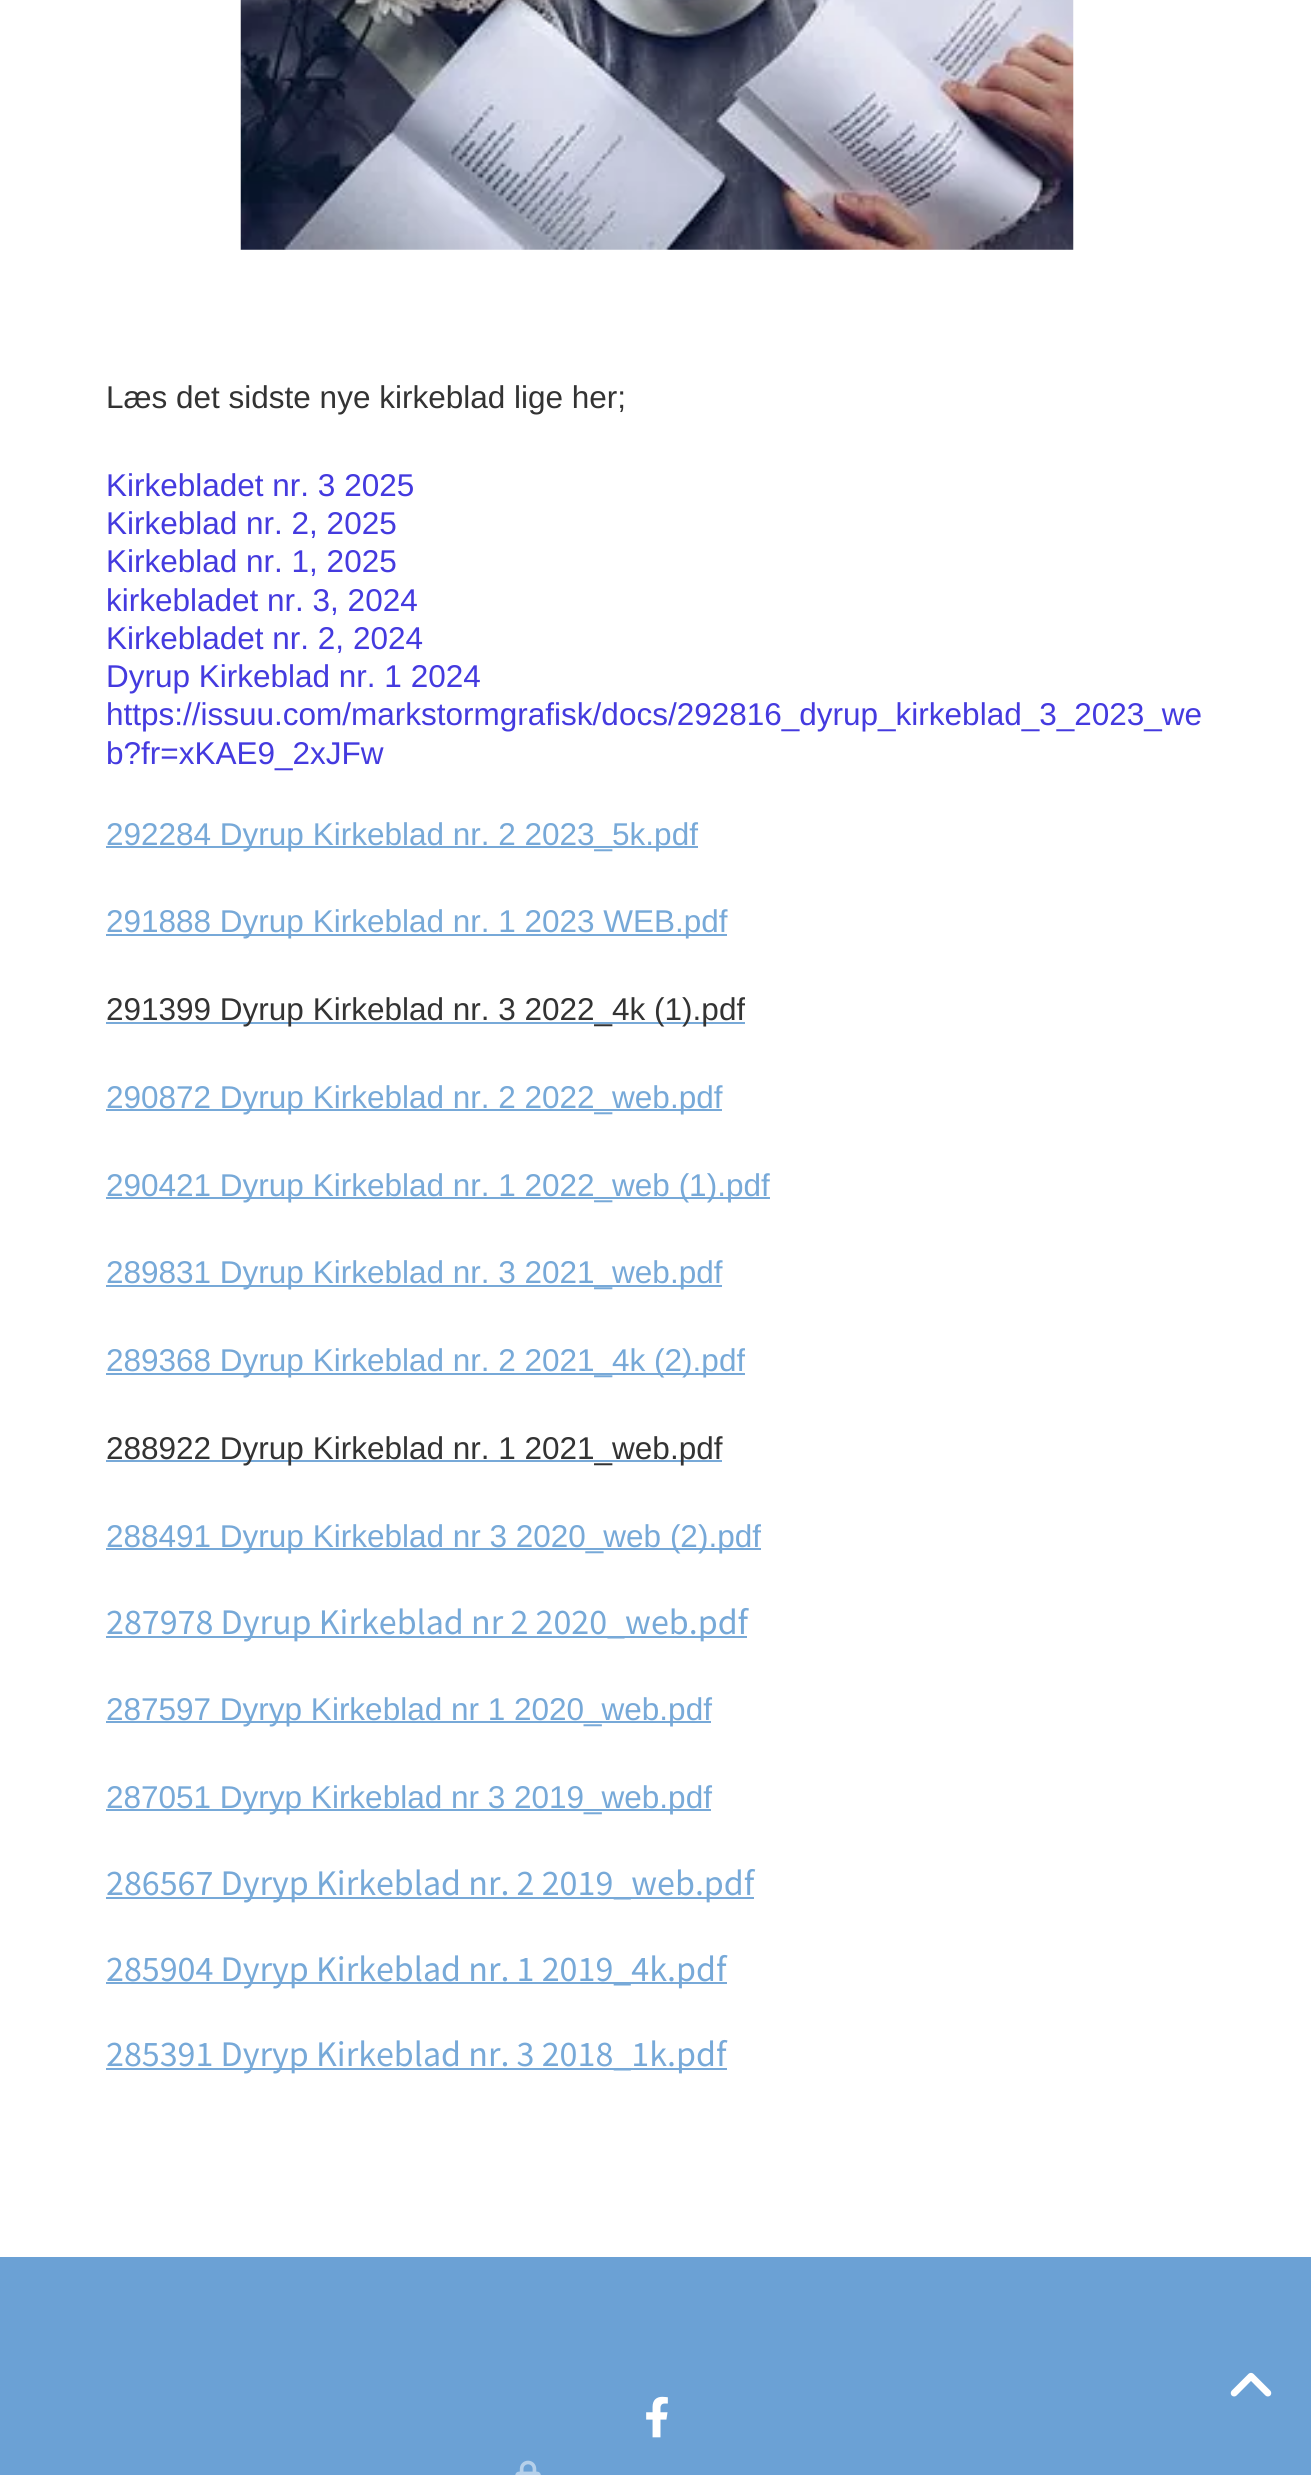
#include <cairo/cairo.h>
#include <math.h>
#include <stddef.h>

typedef struct { double x, y; const char *s; } line_t;
typedef struct { double x, y, w, h; unsigned color; } box_t;
static cairo_t *cr;

static void rgb(unsigned color)
{
	cairo_set_source_rgb(cr, (color >> 16) / 255.0, (color >> 8 & 255) / 255.0, (color & 255) / 255.0);
}

static void image(const char *path, double x, double y, double w, double h)
{
	cairo_surface_t *image = cairo_image_surface_create_from_png(path);
	cairo_save(cr);
	cairo_set_source_surface(cr, image, x, y);
	cairo_rectangle(cr, x, y, w, h);
	cairo_fill(cr);
	cairo_restore(cr);
	cairo_surface_destroy(image);
}

int main(void) {
	cairo_surface_t *surface = cairo_image_surface_create(CAIRO_FORMAT_RGB24, 1311, 2475);
	cr = cairo_create(surface);
	cairo_font_options_t *options = cairo_font_options_create();
	cairo_font_options_set_hint_metrics(options, CAIRO_HINT_METRICS_OFF);
	cairo_font_options_set_hint_style(options, CAIRO_HINT_STYLE_NONE);
	cairo_set_font_options(cr, options);
	cairo_set_miter_limit(cr, 4);
	rgb(0xffffff);
	cairo_paint(cr);
	image("img/1.png", 240, 0, 834, 250);
	{
		static const box_t items[] = {
			{106, 846, 592, 2, 0x77a9d8},
			{106, 934, 621, 2, 0x77a9d8},
			{106, 1022, 639, 2, 0x77a9d8},
			{106, 1109, 616, 2, 0x77a9d8},
			{106, 1197, 664, 2, 0x77a9d8},
			{106, 1285, 616, 2, 0x77a9d8},
			{106, 1373, 639, 2, 0x77a9d8},
			{106, 1460, 616, 2, 0x77a9d8},
			{106, 1548, 655, 2, 0x77a9d8},
			{106, 1636, 641, 2, 0x77a9d8},
			{106, 1721, 605, 2, 0x77a9d8},
			{106, 1809, 605, 2, 0x77a9d8},
			{106, 1897, 648, 2, 0x77a9d8},
			{106, 1982, 621, 2, 0x77a9d8},
			{106, 2068, 621, 2, 0x77a9d8},
			{0, 2257, 1311, 218, 0x6ba1d5},
		};
		for (size_t i = 0; i < sizeof items / sizeof *items; i++) {
			rgb(items[i].color);
			cairo_rectangle(cr, items[i].x, items[i].y, items[i].w, items[i].h);
			cairo_fill(cr);
		}
	}
	image("img/2.png", 646, 2396, 22, 42);
	image("img/3.png", 515, 2460, 26, 15);
	image("img/4.png", 1230, 2372, 42, 25);
	cairo_select_font_face(cr, "Liberation Sans", CAIRO_FONT_SLANT_NORMAL, CAIRO_FONT_WEIGHT_NORMAL);
	cairo_set_font_size(cr, 31.5);
	rgb(0x333333);
	cairo_move_to(cr, 106, 408);
	cairo_show_text(cr, "Læs det sidste nye kirkeblad lige her;");
	rgb(0x443adf);
	{
		static const line_t items[] = {
			{106, 496, "Kirkebladet nr. 3 2025"},
			{106, 534, "Kirkeblad nr. 2, 2025"},
			{106, 572, "Kirkeblad nr. 1, 2025"},
			{106, 611, "kirkebladet nr. 3, 2024"},
			{106, 649, "Kirkebladet nr. 2, 2024"},
			{106, 687, "Dyrup Kirkeblad nr. 1 2024"},
			{106, 725, "https://issuu.com/markstormgrafisk/docs/292816_dyrup_kirkeblad_3_2023_we"},
			{106, 764, "b?fr=xKAE9_2xJFw"},
		};
		for (size_t i = 0; i < sizeof items / sizeof *items; i++) {
			cairo_move_to(cr, items[i].x, items[i].y);
			cairo_show_text(cr, items[i].s);
		}
	}
	rgb(0x77a9d8);
	cairo_move_to(cr, 106, 845);
	cairo_show_text(cr, "292284 Dyrup Kirkeblad nr. 2 2023_5k.pdf");
	cairo_move_to(cr, 106, 932);
	cairo_show_text(cr, "291888 Dyrup Kirkeblad nr. 1 2023 WEB.pdf");
	rgb(0x333333);
	cairo_move_to(cr, 106, 1020);
	cairo_show_text(cr, "291399 Dyrup Kirkeblad nr. 3 2022_4k (1).pdf");
	rgb(0x77a9d8);
	{
		static const line_t items[] = {
			{106, 1108, "290872 Dyrup Kirkeblad nr. 2 2022_web.pdf"},
			{106, 1196, "290421 Dyrup Kirkeblad nr. 1 2022_web (1).pdf"},
			{106, 1283, "289831 Dyrup Kirkeblad nr. 3 2021_web.pdf"},
			{106, 1371, "289368 Dyrup Kirkeblad nr. 2 2021_4k (2).pdf"},
		};
		for (size_t i = 0; i < sizeof items / sizeof *items; i++) {
			cairo_move_to(cr, items[i].x, items[i].y);
			cairo_show_text(cr, items[i].s);
		}
	}
	rgb(0x333333);
	cairo_move_to(cr, 106, 1459);
	cairo_show_text(cr, "288922 Dyrup Kirkeblad nr. 1 2021_web.pdf");
	rgb(0x77a9d8);
	cairo_move_to(cr, 106, 1547);
	cairo_show_text(cr, "288491 Dyrup Kirkeblad nr 3 2020_web (2).pdf");
	cairo_select_font_face(cr, "Source Sans Pro", CAIRO_FONT_SLANT_NORMAL, CAIRO_FONT_WEIGHT_NORMAL);
	cairo_set_font_size(cr, 36);
	cairo_move_to(cr, 106, 1634);
	cairo_show_text(cr, "287978 Dyrup Kirkeblad nr 2 2020_web.pdf");
	cairo_select_font_face(cr, "Liberation Sans", CAIRO_FONT_SLANT_NORMAL, CAIRO_FONT_WEIGHT_NORMAL);
	cairo_set_font_size(cr, 31.5);
	cairo_move_to(cr, 106, 1720);
	cairo_show_text(cr, "287597 Dyryp Kirkeblad nr 1 2020_web.pdf");
	cairo_move_to(cr, 106, 1808);
	cairo_show_text(cr, "287051 Dyryp Kirkeblad nr 3 2019_web.pdf");
	cairo_select_font_face(cr, "Source Sans Pro", CAIRO_FONT_SLANT_NORMAL, CAIRO_FONT_WEIGHT_NORMAL);
	cairo_set_font_size(cr, 36);
	{
		static const line_t items[] = {
			{106, 1895, "286567 Dyryp Kirkeblad nr. 2 2019_web.pdf"},
			{106, 1981, "285904 Dyryp Kirkeblad nr. 1 2019_4k.pdf"},
			{106, 2066, "285391 Dyryp Kirkeblad nr. 3 2018_1k.pdf"},
		};
		for (size_t i = 0; i < sizeof items / sizeof *items; i++) {
			cairo_move_to(cr, items[i].x, items[i].y);
			cairo_show_text(cr, items[i].s);
		}
	}
	cairo_surface_write_to_png(surface, "page.png");
	cairo_font_options_destroy(options);
	cairo_destroy(cr);
	cairo_surface_destroy(surface);
	return 0;
}
